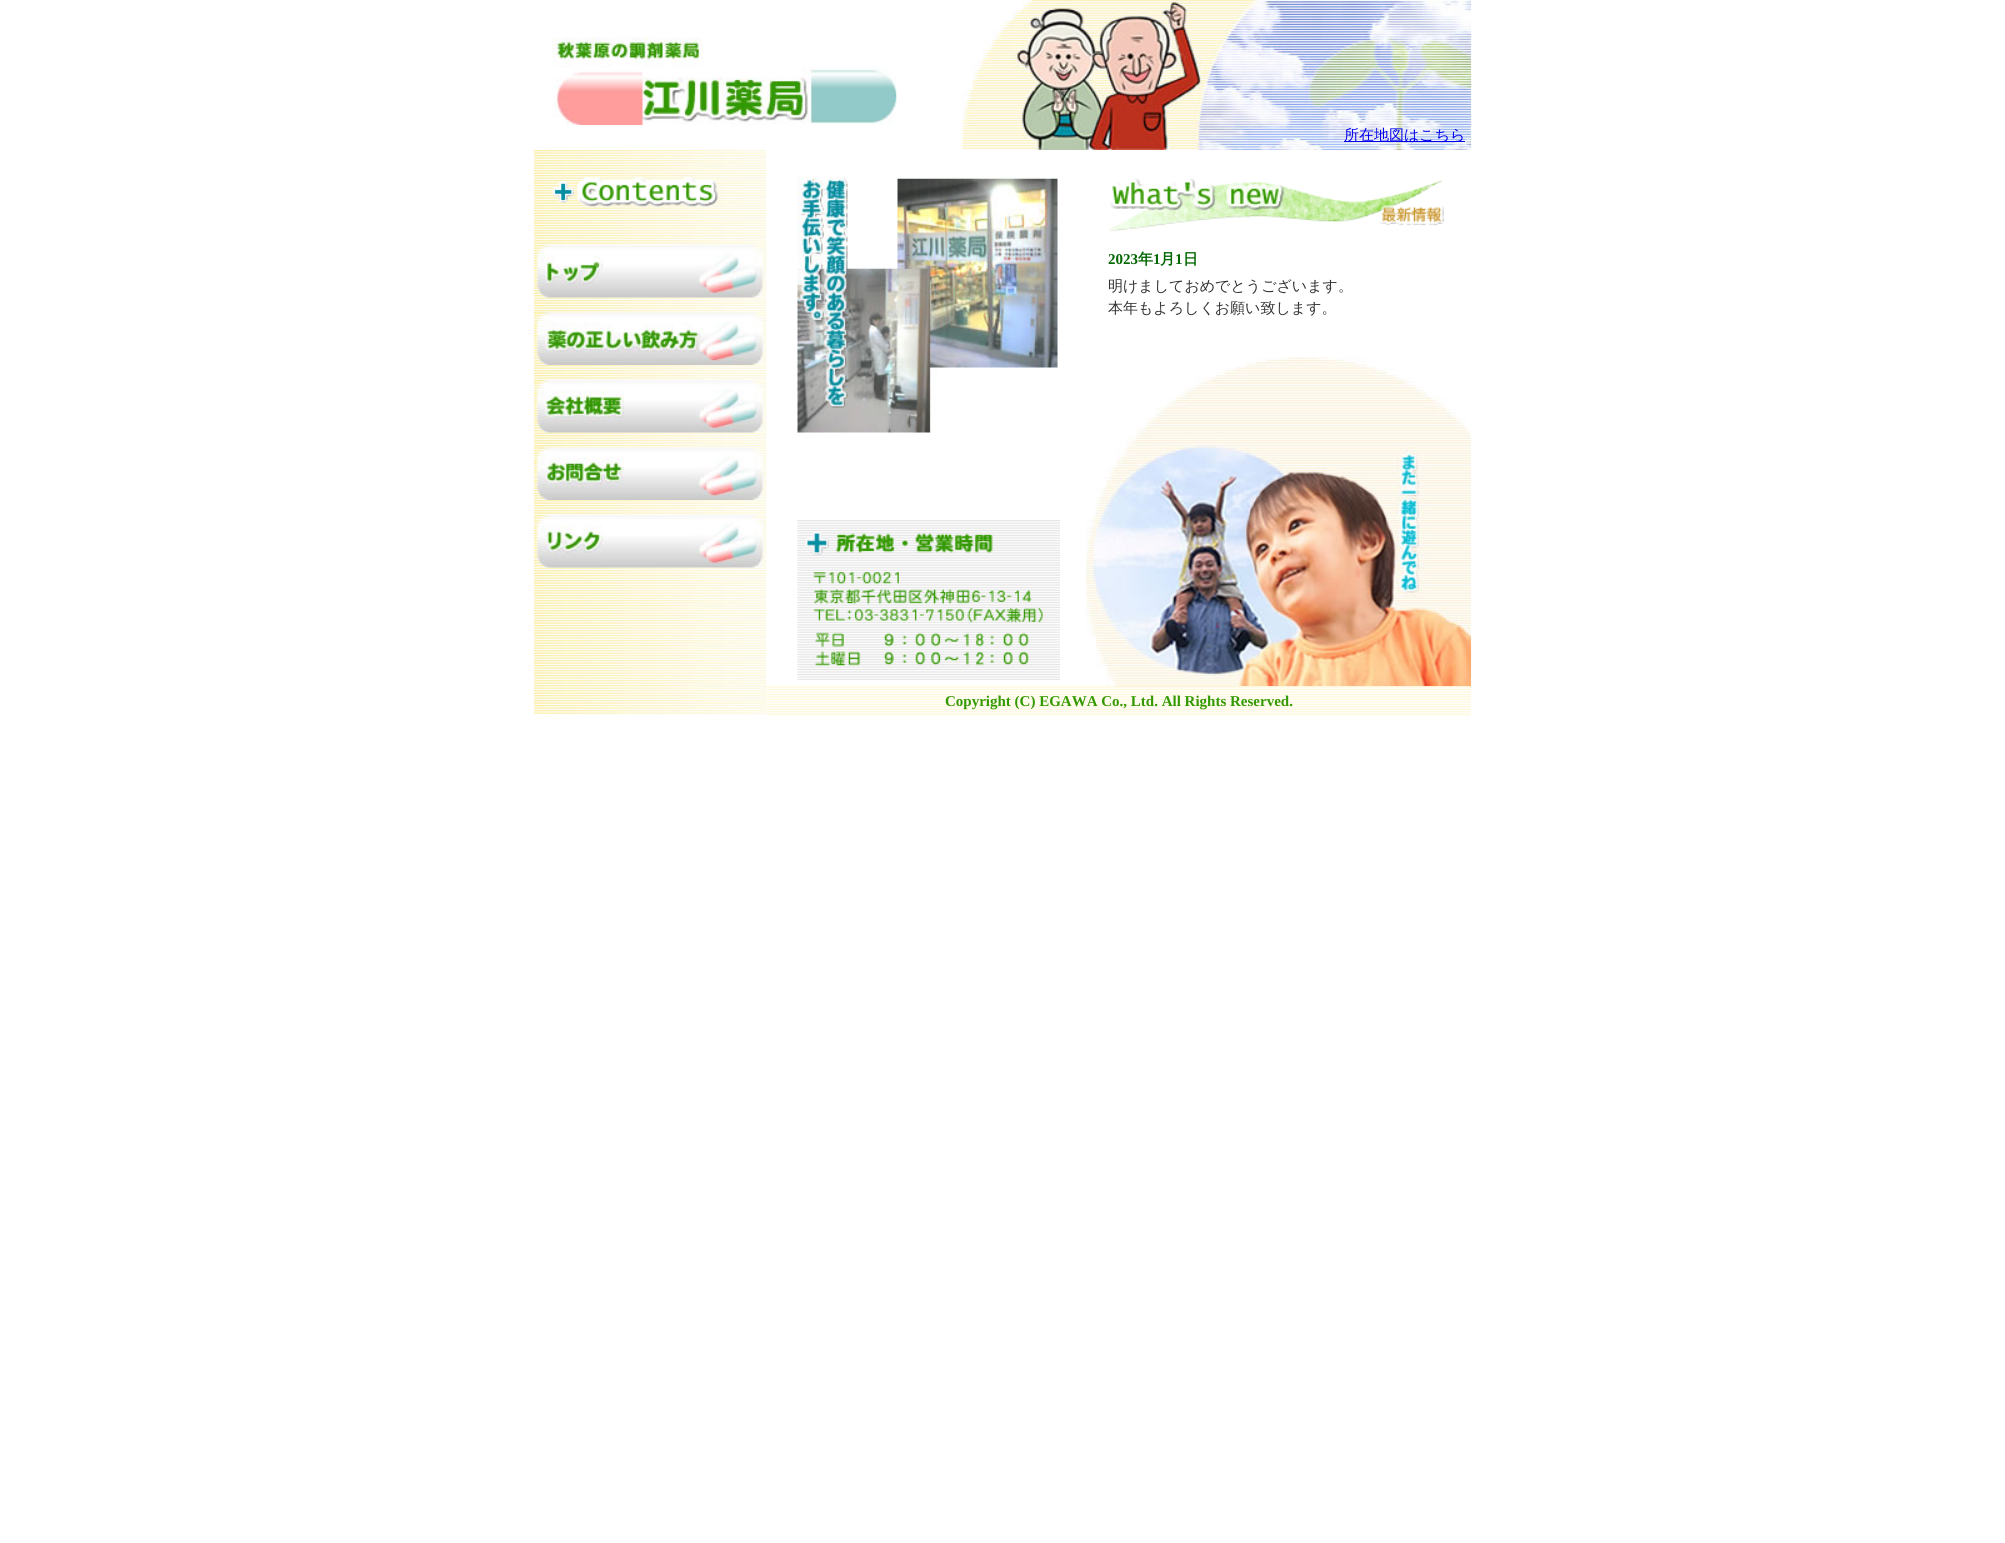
#include <cairo/cairo.h>
#include <math.h>
#include <stddef.h>

static cairo_t *cr;

static void rgb(unsigned color)
{
	cairo_set_source_rgb(cr, (color >> 16) / 255.0, (color >> 8 & 255) / 255.0, (color & 255) / 255.0);
}

static void image(const char *path, double x, double y, double w, double h)
{
	cairo_surface_t *image = cairo_image_surface_create_from_png(path);
	cairo_save(cr);
	cairo_set_source_surface(cr, image, x, y);
	cairo_rectangle(cr, x, y, w, h);
	cairo_fill(cr);
	cairo_restore(cr);
	cairo_surface_destroy(image);
}

int main(void) {
	cairo_surface_t *surface = cairo_image_surface_create(CAIRO_FORMAT_RGB24, 2005, 1543);
	cr = cairo_create(surface);
	cairo_font_options_t *options = cairo_font_options_create();
	cairo_font_options_set_hint_metrics(options, CAIRO_HINT_METRICS_OFF);
	cairo_font_options_set_hint_style(options, CAIRO_HINT_STYLE_NONE);
	cairo_set_font_options(cr, options);
	cairo_set_miter_limit(cr, 4);
	rgb(0xffffff);
	cairo_paint(cr);
	image("img/1.png", 962, 0, 510, 150);
	image("img/2.png", 552, 37, 345, 88);
	rgb(0x0000ee);
	cairo_rectangle(cr, 1344, 141, 121, 1);
	cairo_fill(cr);
	image("img/3.png", 533, 150, 234, 565);
	image("img/4.png", 552, 177, 166, 30);
	image("img/5.png", 533, 245, 234, 53);
	image("img/6.png", 533, 312, 234, 53);
	image("img/7.png", 533, 380, 234, 53);
	image("img/8.png", 533, 447, 234, 53);
	image("img/9.png", 533, 515, 234, 53);
	image("img/10.png", 1086, 357, 386, 330);
	image("img/11.png", 797, 177, 261, 256);
	image("img/12.png", 1109, 177, 335, 55);
	image("img/13.png", 797, 520, 263, 160);
	image("img/14.png", 766, 686, 705, 29);
	cairo_select_font_face(cr, "WenQuanYi Zen Hei Medium", CAIRO_FONT_SLANT_NORMAL, CAIRO_FONT_WEIGHT_NORMAL);
	cairo_set_font_size(cr, 15);
	cairo_move_to(cr, 1344, 140);
	cairo_show_text(cr, "所在地図はこちら");
	cairo_select_font_face(cr, "Liberation Serif", CAIRO_FONT_SLANT_NORMAL, CAIRO_FONT_WEIGHT_BOLD);
	rgb(0x006600);
	cairo_move_to(cr, 1108, 264);
	cairo_show_text(cr, "2023");
	cairo_select_font_face(cr, "WenQuanYi Zen Hei", CAIRO_FONT_SLANT_NORMAL, CAIRO_FONT_WEIGHT_BOLD);
	cairo_move_to(cr, 1138, 264);
	cairo_show_text(cr, "年");
	cairo_select_font_face(cr, "Liberation Serif", CAIRO_FONT_SLANT_NORMAL, CAIRO_FONT_WEIGHT_BOLD);
	cairo_move_to(cr, 1153, 264);
	cairo_show_text(cr, "1");
	cairo_select_font_face(cr, "WenQuanYi Zen Hei", CAIRO_FONT_SLANT_NORMAL, CAIRO_FONT_WEIGHT_BOLD);
	cairo_move_to(cr, 1160, 264);
	cairo_show_text(cr, "月");
	cairo_select_font_face(cr, "Liberation Serif", CAIRO_FONT_SLANT_NORMAL, CAIRO_FONT_WEIGHT_BOLD);
	cairo_move_to(cr, 1175, 264);
	cairo_show_text(cr, "1");
	cairo_select_font_face(cr, "WenQuanYi Zen Hei", CAIRO_FONT_SLANT_NORMAL, CAIRO_FONT_WEIGHT_BOLD);
	cairo_move_to(cr, 1183, 264);
	cairo_show_text(cr, "日");
	cairo_select_font_face(cr, "WenQuanYi Zen Hei Medium", CAIRO_FONT_SLANT_NORMAL, CAIRO_FONT_WEIGHT_NORMAL);
	rgb(0x333333);
	cairo_move_to(cr, 1108, 291);
	cairo_show_text(cr, "明けましておめでとうございます。");
	cairo_move_to(cr, 1108, 313);
	cairo_show_text(cr, "本年もよろしくお願い致します。");
	cairo_select_font_face(cr, "Liberation Serif", CAIRO_FONT_SLANT_NORMAL, CAIRO_FONT_WEIGHT_BOLD);
	rgb(0x339900);
	cairo_move_to(cr, 945, 706);
	cairo_show_text(cr, "Copyright (C) EGAWA Co., Ltd. All Rights Reserved.");
	cairo_surface_write_to_png(surface, "page.png");
	cairo_font_options_destroy(options);
	cairo_destroy(cr);
	cairo_surface_destroy(surface);
	return 0;
}
